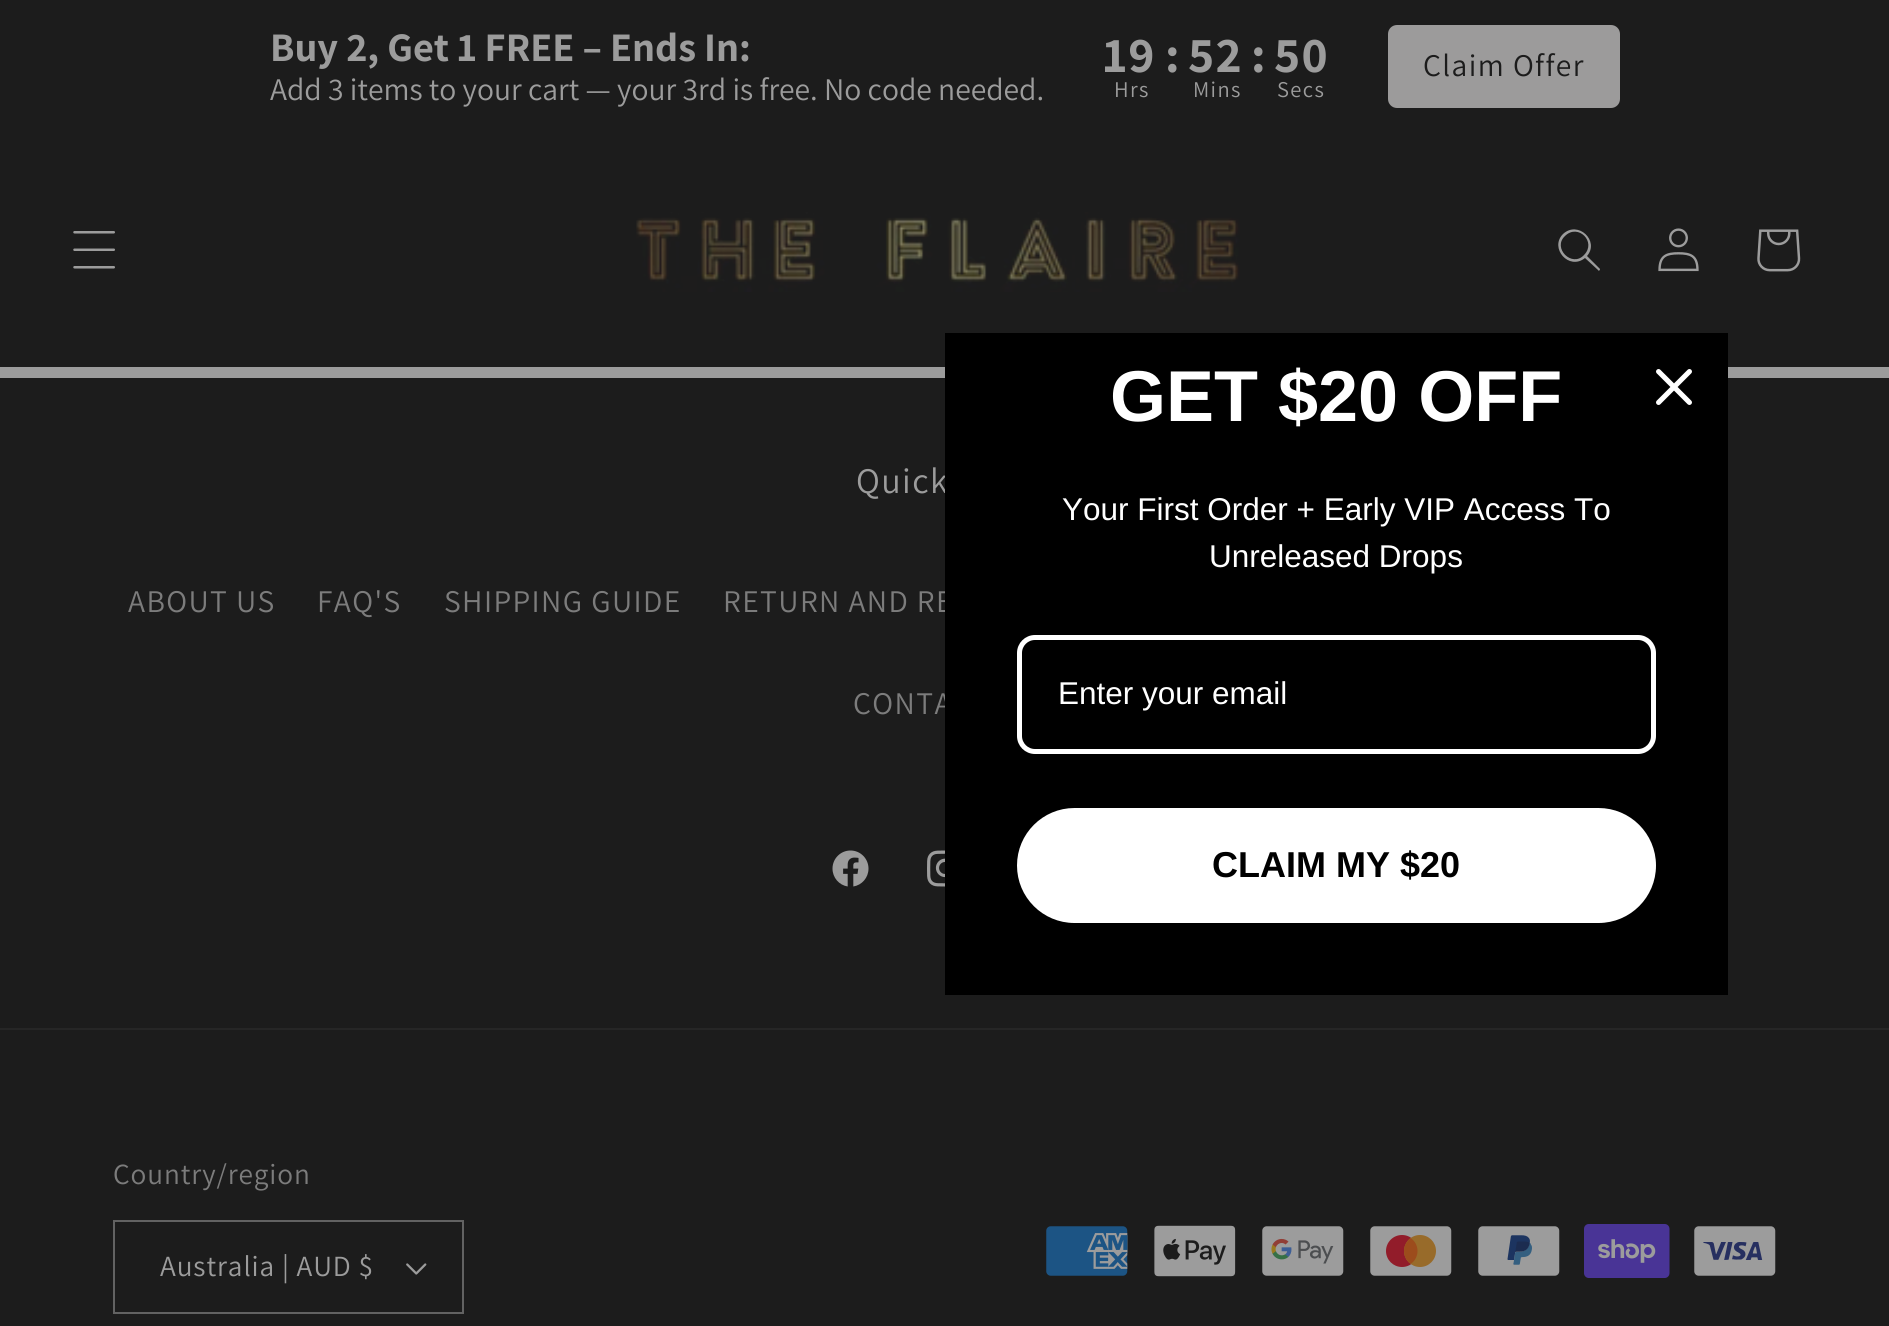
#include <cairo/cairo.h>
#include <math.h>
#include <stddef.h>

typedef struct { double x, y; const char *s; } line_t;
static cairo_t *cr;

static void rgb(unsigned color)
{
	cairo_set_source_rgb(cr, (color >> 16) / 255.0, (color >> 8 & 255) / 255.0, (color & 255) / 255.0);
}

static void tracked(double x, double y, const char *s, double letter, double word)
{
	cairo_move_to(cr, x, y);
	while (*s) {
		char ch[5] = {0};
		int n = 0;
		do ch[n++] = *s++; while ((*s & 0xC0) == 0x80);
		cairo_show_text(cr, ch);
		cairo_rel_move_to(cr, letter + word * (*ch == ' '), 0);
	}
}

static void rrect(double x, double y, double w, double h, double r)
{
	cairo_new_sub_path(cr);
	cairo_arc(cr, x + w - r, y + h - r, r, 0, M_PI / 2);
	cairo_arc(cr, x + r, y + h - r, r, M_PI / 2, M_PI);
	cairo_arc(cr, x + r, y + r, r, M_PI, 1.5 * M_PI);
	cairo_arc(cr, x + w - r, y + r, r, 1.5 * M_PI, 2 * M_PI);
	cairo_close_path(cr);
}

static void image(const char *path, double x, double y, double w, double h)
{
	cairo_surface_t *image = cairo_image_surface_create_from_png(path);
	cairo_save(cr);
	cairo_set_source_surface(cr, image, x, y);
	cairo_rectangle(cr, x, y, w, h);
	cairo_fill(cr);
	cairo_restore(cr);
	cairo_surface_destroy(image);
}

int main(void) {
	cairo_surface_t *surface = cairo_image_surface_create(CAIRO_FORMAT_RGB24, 1889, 1326);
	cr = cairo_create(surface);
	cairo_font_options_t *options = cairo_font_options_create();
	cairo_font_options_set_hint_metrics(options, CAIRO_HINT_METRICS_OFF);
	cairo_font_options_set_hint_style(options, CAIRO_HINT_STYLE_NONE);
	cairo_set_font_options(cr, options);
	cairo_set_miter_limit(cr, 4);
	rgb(0x9c9c9c);
	cairo_paint(cr);
	rgb(0x1c1c1c);
	cairo_rectangle(cr, 0, 0, 1889, 367);
	cairo_fill(cr);
	rgb(0x9c9b9b);
	rrect(1388, 25, 232, 83, 9);
	cairo_fill(cr);
	image("img/1.png", 73, 231, 42, 38);
	image("img/2.png", 636, 212, 604, 80);
	rgb(0x9c9c9c);
	cairo_set_fill_rule(cr, CAIRO_FILL_RULE_EVEN_ODD);
	cairo_new_path(cr);
	cairo_move_to(cr, 1584, 255);
	cairo_curve_to(cr, 1572, 268, 1552, 248, 1565, 236);
	cairo_curve_to(cr, 1578, 223, 1597, 242, 1584, 255);
	cairo_move_to(cr, 1585, 258);
	cairo_curve_to(cr, 1569, 271, 1549, 248, 1563, 234);
	cairo_curve_to(cr, 1578, 220, 1600, 241, 1587, 256);
	cairo_line_to(cr, 1600, 269);
	cairo_curve_to(cr, 1600, 271, 1598, 271, 1598, 270);
	cairo_close_path(cr);
	cairo_fill(cr);
	image("img/3.png", 1658, 228, 41, 44);
	image("img/4.png", 1757, 229, 44, 43);
	rgb(0x1c1c1c);
	cairo_rectangle(cr, 0, 378, 1889, 948);
	cairo_fill(cr);
	image("img/5.png", 832, 850, 37, 37);
	image("img/6.png", 927, 850, 18, 37);
	rgb(0x262626);
	cairo_rectangle(cr, 0, 1028, 1889, 2);
	cairo_fill(cr);
	image("img/7.png", 406, 1263, 21, 12);
	cairo_rectangle(cr, 114, 1221, 349, 92);
	rgb(0x626262);
	cairo_stroke(cr);
	image("img/8.png", 1046, 1226, 82, 50);
	image("img/9.png", 1154, 1225, 82, 52);
	image("img/10.png", 1262, 1226, 82, 50);
	image("img/11.png", 1370, 1226, 82, 50);
	image("img/12.png", 1478, 1226, 82, 50);
	image("img/13.png", 1584, 1224, 86, 54);
	image("img/14.png", 1694, 1226, 82, 50);
	cairo_select_font_face(cr, "Assistant", CAIRO_FONT_SLANT_NORMAL, CAIRO_FONT_WEIGHT_BOLD);
	cairo_set_font_size(cr, 40.5);
	rgb(0x9c9c9c);
	cairo_move_to(cr, 270, 61);
	cairo_show_text(cr, "Buy 2, Get 1 FREE – Ends In:");
	cairo_select_font_face(cr, "Assistant", CAIRO_FONT_SLANT_NORMAL, CAIRO_FONT_WEIGHT_NORMAL);
	cairo_set_font_size(cr, 31.5);
	cairo_move_to(cr, 270, 100);
	cairo_show_text(cr, "Add 3 items to your cart — your 3rd is free. No code needed.");
	cairo_select_font_face(cr, "Assistant", CAIRO_FONT_SLANT_NORMAL, CAIRO_FONT_WEIGHT_BOLD);
	cairo_set_font_size(cr, 50);
	{
		static const line_t items[] = {
			{1103, 72, "19"},
			{1165, 72, ":"},
			{1188, 72, "52"},
			{1251, 72, ":"},
			{1274, 72, "50"},
		};
		for (size_t i = 0; i < sizeof items / sizeof *items; i++) {
			tracked(items[i].x, items[i].y, items[i].s, 1.4, 0);
		}
	}
	cairo_select_font_face(cr, "Assistant", CAIRO_FONT_SLANT_NORMAL, CAIRO_FONT_WEIGHT_NORMAL);
	cairo_set_font_size(cr, 22.5);
	{
		static const line_t items[] = {
			{1114, 97, "Hrs"},
			{1193, 97, "Mins"},
			{1277, 97, "Secs"},
		};
		for (size_t i = 0; i < sizeof items / sizeof *items; i++) {
			tracked(items[i].x, items[i].y, items[i].s, 1.4, 0);
		}
	}
	cairo_set_font_size(cr, 31.5);
	rgb(0x1c1c1c);
	tracked(1423, 76, "Claim Offer", 1.4, 0);
	cairo_set_font_size(cr, 36);
	rgb(0x9c9c9c);
	tracked(856, 493, "Quick", 1.4, 0);
	cairo_set_font_size(cr, 31.5);
	rgb(0x7c7c7c);
	{
		static const line_t items[] = {
			{128, 612, "ABOUT US"},
			{317, 612, "FAQ'S"},
			{444, 612, "SHIPPING GUIDE"},
			{723, 612, "RETURN AND RE"},
			{853, 714, "CONTA"},
		};
		for (size_t i = 0; i < sizeof items / sizeof *items; i++) {
			tracked(items[i].x, items[i].y, items[i].s, 1.4, 0);
		}
	}
	cairo_set_font_size(cr, 29.25);
	tracked(113, 1184, "Country/region", 0.9, 0);
	rgb(0x9c9c9c);
	tracked(160, 1276, "Australia | AUD $", 0.9, 0);
	rgb(0x000000);
	cairo_rectangle(cr, 945, 333, 783, 662);
	cairo_fill(cr);
	cairo_select_font_face(cr, "Liberation Sans", CAIRO_FONT_SLANT_NORMAL, CAIRO_FONT_WEIGHT_BOLD);
	cairo_set_font_size(cr, 72);
	rgb(0xffffff);
	cairo_move_to(cr, 1110, 421);
	cairo_show_text(cr, "GET $20 OFF");
	cairo_select_font_face(cr, "Liberation Sans", CAIRO_FONT_SLANT_NORMAL, CAIRO_FONT_WEIGHT_NORMAL);
	cairo_set_font_size(cr, 31.5);
	cairo_move_to(cr, 1062, 520);
	cairo_show_text(cr, "Your First Order + Early VIP Access To");
	cairo_move_to(cr, 1209, 567);
	cairo_show_text(cr, "Unreleased Drops");
	rrect(1019.5, 637.5, 634, 114, 15.5);
	cairo_set_line_width(cr, 5);
	cairo_stroke(cr);
	cairo_move_to(cr, 1058, 704);
	cairo_show_text(cr, "Enter your email");
	rrect(1017, 808, 639, 115, 57.5);
	cairo_fill(cr);
	cairo_select_font_face(cr, "Liberation Sans", CAIRO_FONT_SLANT_NORMAL, CAIRO_FONT_WEIGHT_BOLD);
	cairo_set_font_size(cr, 36);
	rgb(0x000000);
	cairo_move_to(cr, 1212, 877);
	cairo_show_text(cr, "CLAIM MY $20");
	image("img/15.png", 1656, 369, 36, 36);
	cairo_surface_write_to_png(surface, "page.png");
	cairo_font_options_destroy(options);
	cairo_destroy(cr);
	cairo_surface_destroy(surface);
	return 0;
}
